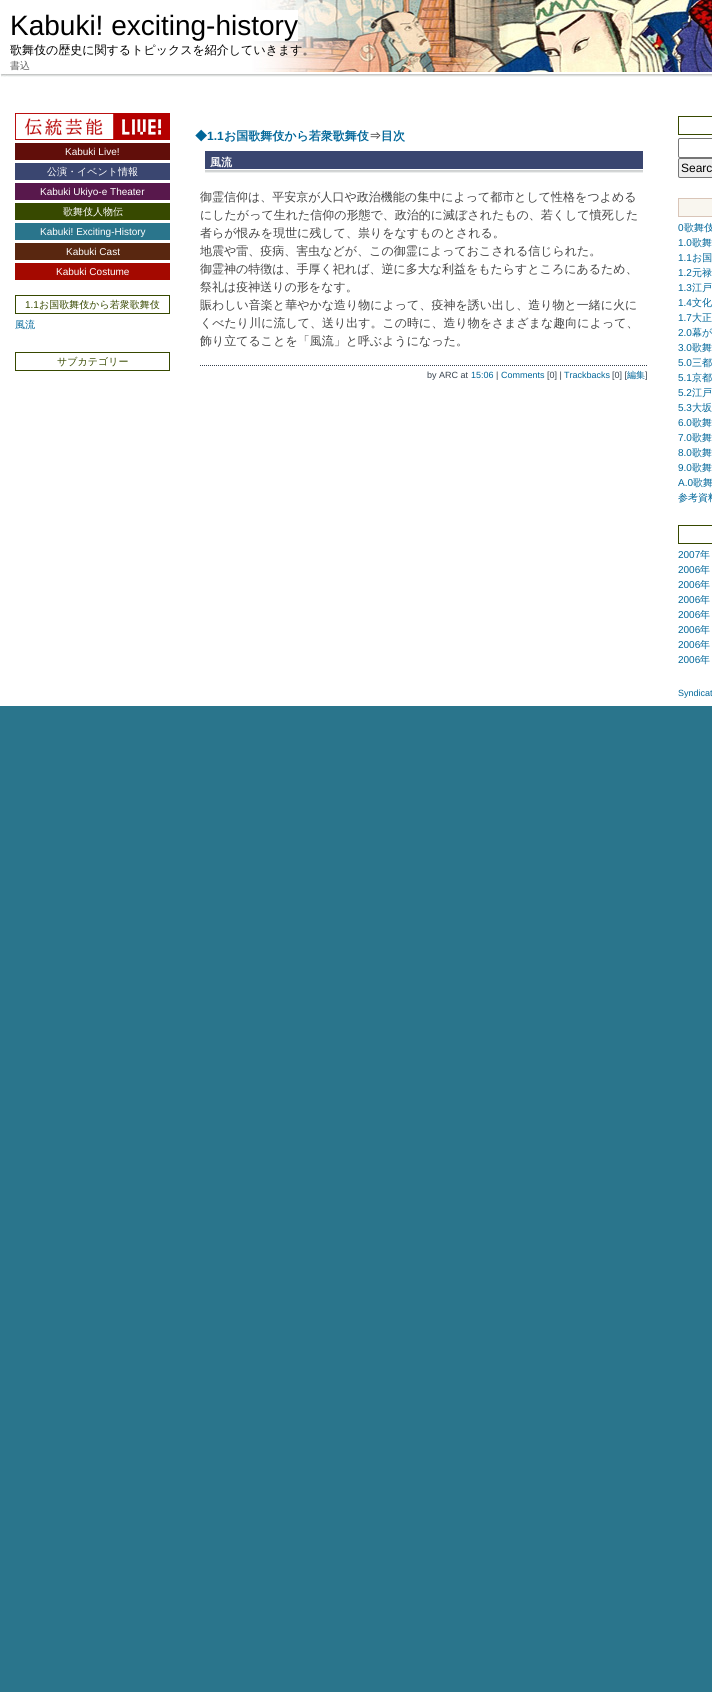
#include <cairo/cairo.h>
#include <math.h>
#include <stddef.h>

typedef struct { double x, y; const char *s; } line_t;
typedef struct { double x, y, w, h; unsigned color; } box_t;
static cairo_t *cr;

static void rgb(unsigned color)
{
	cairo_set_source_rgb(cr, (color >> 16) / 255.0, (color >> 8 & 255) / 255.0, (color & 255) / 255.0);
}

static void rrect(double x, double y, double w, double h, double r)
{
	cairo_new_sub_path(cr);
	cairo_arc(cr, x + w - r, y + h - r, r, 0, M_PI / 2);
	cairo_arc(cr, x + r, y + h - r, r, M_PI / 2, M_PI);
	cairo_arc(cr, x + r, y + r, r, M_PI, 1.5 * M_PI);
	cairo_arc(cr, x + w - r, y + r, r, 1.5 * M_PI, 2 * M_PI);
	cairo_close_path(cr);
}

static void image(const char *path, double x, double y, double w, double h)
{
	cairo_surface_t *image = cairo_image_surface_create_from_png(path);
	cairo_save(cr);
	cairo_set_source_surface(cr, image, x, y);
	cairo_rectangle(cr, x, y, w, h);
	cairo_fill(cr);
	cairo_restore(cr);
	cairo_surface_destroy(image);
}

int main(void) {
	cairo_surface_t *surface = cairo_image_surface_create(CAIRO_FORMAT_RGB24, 712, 1692);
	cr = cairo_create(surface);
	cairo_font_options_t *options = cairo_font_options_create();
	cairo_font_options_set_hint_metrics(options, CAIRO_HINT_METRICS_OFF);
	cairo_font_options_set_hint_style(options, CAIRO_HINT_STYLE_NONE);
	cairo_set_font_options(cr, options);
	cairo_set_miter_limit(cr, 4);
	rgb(0x2a758c);
	cairo_paint(cr);
	rgb(0xffffff);
	cairo_rectangle(cr, 0, 77, 712, 629);
	cairo_fill(cr);
	image("img/1.png", 0, 0, 712, 77);
	cairo_rectangle(cr, 254, 10, 44, 31);
	cairo_fill(cr);
	image("img/2.png", 15, 113, 155, 27);
	{
		static const box_t items[] = {
			{15, 143, 155, 17, 0x610e0a},
			{15, 163, 155, 17, 0x3a4670},
			{15, 183, 155, 17, 0x58184c},
			{15, 203, 155, 17, 0x374900},
			{15, 223, 155, 17, 0x2a758c},
			{15, 243, 155, 17, 0x592710},
			{15, 263, 155, 17, 0xa40900},
		};
		for (size_t i = 0; i < sizeof items / sizeof *items; i++) {
			rgb(items[i].color);
			cairo_rectangle(cr, items[i].x, items[i].y, items[i].w, items[i].h);
			cairo_fill(cr);
		}
	}
	cairo_rectangle(cr, 15.5, 295.5, 154, 18);
	rgb(0x374900);
	cairo_set_line_width(cr, 1);
	cairo_stroke(cr);
	cairo_rectangle(cr, 15.5, 352.5, 154, 18);
	cairo_stroke(cr);
	image("img/3.png", 205, 151, 438, 22);
	cairo_new_path(cr);
	cairo_move_to(cr, 200, 365.5);
	cairo_line_to(cr, 648, 365.5);
	rgb(0x36414d);
	cairo_set_dash(cr, (double[]){1, 1}, 2, 0);
	cairo_stroke(cr);
	cairo_rectangle(cr, 678.5, 116.5, 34, 18);
	rgb(0x374900);
	cairo_set_dash(cr, NULL, 0, 0);
	cairo_stroke(cr);
	rrect(678.5, 138.5, 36, 19, 1.5);
	rgb(0x767676);
	cairo_stroke(cr);
	rgb(0xefefef);
	rrect(678.5, 158.5, 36, 19, 1.5);
	cairo_fill_preserve(cr);
	rgb(0x767676);
	cairo_stroke(cr);
	rgb(0xf9f6ef);
	cairo_rectangle(cr, 678.5, 198.5, 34, 18);
	cairo_fill_preserve(cr);
	rgb(0xd9c5b8);
	cairo_stroke(cr);
	cairo_rectangle(cr, 678.5, 525.5, 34, 18);
	rgb(0x374900);
	cairo_stroke(cr);
	cairo_select_font_face(cr, "Liberation Sans", CAIRO_FONT_SLANT_NORMAL, CAIRO_FONT_WEIGHT_NORMAL);
	cairo_set_font_size(cr, 28);
	rgb(0x000000);
	cairo_move_to(cr, 10, 35);
	cairo_show_text(cr, "Kabuki! exciting-history");
	cairo_select_font_face(cr, "WenQuanYi Zen Hei Medium", CAIRO_FONT_SLANT_NORMAL, CAIRO_FONT_WEIGHT_NORMAL);
	cairo_set_font_size(cr, 12);
	cairo_move_to(cr, 10, 54);
	cairo_show_text(cr, "歌舞伎の歴史に関するトピックスを紹介していきます。");
	cairo_set_font_size(cr, 10);
	rgb(0x666666);
	cairo_move_to(cr, 10, 69);
	cairo_show_text(cr, "書込");
	cairo_select_font_face(cr, "Liberation Sans", CAIRO_FONT_SLANT_NORMAL, CAIRO_FONT_WEIGHT_NORMAL);
	rgb(0xffffff);
	cairo_move_to(cr, 65, 155);
	cairo_show_text(cr, "Kabuki Live!");
	cairo_select_font_face(cr, "WenQuanYi Zen Hei Medium", CAIRO_FONT_SLANT_NORMAL, CAIRO_FONT_WEIGHT_NORMAL);
	cairo_move_to(cr, 47, 175);
	cairo_show_text(cr, "公演・イベント情報");
	cairo_select_font_face(cr, "Liberation Sans", CAIRO_FONT_SLANT_NORMAL, CAIRO_FONT_WEIGHT_NORMAL);
	cairo_move_to(cr, 40, 195);
	cairo_show_text(cr, "Kabuki Ukiyo-e Theater");
	cairo_select_font_face(cr, "WenQuanYi Zen Hei Medium", CAIRO_FONT_SLANT_NORMAL, CAIRO_FONT_WEIGHT_NORMAL);
	cairo_move_to(cr, 63, 215);
	cairo_show_text(cr, "歌舞伎人物伝");
	cairo_select_font_face(cr, "Liberation Sans", CAIRO_FONT_SLANT_NORMAL, CAIRO_FONT_WEIGHT_NORMAL);
	{
		static const line_t items[] = {
			{40, 235, "Kabuki! Exciting-History"},
			{66, 255, "Kabuki Cast"},
			{56, 275, "Kabuki Costume"},
		};
		for (size_t i = 0; i < sizeof items / sizeof *items; i++) {
			cairo_move_to(cr, items[i].x, items[i].y);
			cairo_show_text(cr, items[i].s);
		}
	}
	rgb(0x374900);
	cairo_move_to(cr, 25, 308);
	cairo_show_text(cr, "1.1");
	cairo_select_font_face(cr, "WenQuanYi Zen Hei Medium", CAIRO_FONT_SLANT_NORMAL, CAIRO_FONT_WEIGHT_NORMAL);
	cairo_move_to(cr, 39, 308);
	cairo_show_text(cr, "お国歌舞伎から若衆歌舞伎");
	rgb(0x006699);
	cairo_move_to(cr, 15, 328);
	cairo_show_text(cr, "風流");
	rgb(0x374900);
	cairo_move_to(cr, 57, 365);
	cairo_show_text(cr, "サブカテゴリー");
	cairo_select_font_face(cr, "WenQuanYi Zen Hei", CAIRO_FONT_SLANT_NORMAL, CAIRO_FONT_WEIGHT_BOLD);
	cairo_set_font_size(cr, 12);
	rgb(0x006699);
	cairo_move_to(cr, 195, 140);
	cairo_show_text(cr, "◆");
	cairo_select_font_face(cr, "Liberation Sans", CAIRO_FONT_SLANT_NORMAL, CAIRO_FONT_WEIGHT_BOLD);
	cairo_move_to(cr, 207, 140);
	cairo_show_text(cr, "1.1");
	cairo_select_font_face(cr, "WenQuanYi Zen Hei", CAIRO_FONT_SLANT_NORMAL, CAIRO_FONT_WEIGHT_BOLD);
	cairo_move_to(cr, 224, 140);
	cairo_show_text(cr, "お国歌舞伎から若衆歌舞伎");
	rgb(0x444444);
	cairo_move_to(cr, 369, 140);
	cairo_show_text(cr, "⇒");
	rgb(0x006699);
	cairo_move_to(cr, 381, 140);
	cairo_show_text(cr, "目次");
	cairo_set_font_size(cr, 11);
	rgb(0xffffff);
	cairo_move_to(cr, 210, 166);
	cairo_show_text(cr, "風流");
	cairo_select_font_face(cr, "WenQuanYi Zen Hei Medium", CAIRO_FONT_SLANT_NORMAL, CAIRO_FONT_WEIGHT_NORMAL);
	cairo_set_font_size(cr, 12);
	rgb(0x444444);
	{
		static const line_t items[] = {
			{200, 201, "御霊信仰は、平安京が人口や政治機能の集中によって都市として性格をつよめる"},
			{200, 219, "にしたがって生れた信仰の形態で、政治的に滅ぼされたもの、若くして憤死した"},
			{200, 237, "者らが恨みを現世に残して、祟りをなすものとされる。"},
			{200, 255, "地震や雷、疫病、害虫などが、この御霊によっておこされる信じられた。"},
			{200, 273, "御霊神の特徴は、手厚く祀れば、逆に多大な利益をもたらすところにあるため、"},
			{200, 291, "祭礼は疫神送りの形をなす。"},
			{200, 309, "賑わしい音楽と華やかな造り物によって、疫神を誘い出し、造り物と一緒に火に"},
			{200, 327, "くべたり川に流して、送り出す。この時に、造り物をさまざまな趣向によって、"},
			{200, 345, "飾り立てることを「風流」と呼ぶようになった。"},
		};
		for (size_t i = 0; i < sizeof items / sizeof *items; i++) {
			cairo_move_to(cr, items[i].x, items[i].y);
			cairo_show_text(cr, items[i].s);
		}
	}
	cairo_select_font_face(cr, "Liberation Sans", CAIRO_FONT_SLANT_NORMAL, CAIRO_FONT_WEIGHT_NORMAL);
	cairo_set_font_size(cr, 9);
	rgb(0x36414d);
	cairo_move_to(cr, 427, 378);
	cairo_show_text(cr, "by ARC at");
	rgb(0x006699);
	cairo_move_to(cr, 471, 378);
	cairo_show_text(cr, "15:06");
	rgb(0x36414d);
	cairo_move_to(cr, 496, 378);
	cairo_show_text(cr, "|");
	rgb(0x006699);
	cairo_move_to(cr, 501, 378);
	cairo_show_text(cr, "Comments");
	rgb(0x36414d);
	cairo_move_to(cr, 547, 378);
	cairo_show_text(cr, "[0] |");
	rgb(0x006699);
	cairo_move_to(cr, 564, 378);
	cairo_show_text(cr, "Trackbacks");
	rgb(0x36414d);
	cairo_move_to(cr, 612, 378);
	cairo_show_text(cr, "[0] [");
	cairo_select_font_face(cr, "WenQuanYi Zen Hei Medium", CAIRO_FONT_SLANT_NORMAL, CAIRO_FONT_WEIGHT_NORMAL);
	rgb(0x006699);
	cairo_move_to(cr, 627, 378);
	cairo_show_text(cr, "編集");
	cairo_select_font_face(cr, "Liberation Sans", CAIRO_FONT_SLANT_NORMAL, CAIRO_FONT_WEIGHT_NORMAL);
	rgb(0x36414d);
	cairo_move_to(cr, 645, 378);
	cairo_show_text(cr, "]");
	cairo_set_font_size(cr, 12);
	rgb(0x000000);
	cairo_move_to(cr, 681, 172);
	cairo_show_text(cr, "Searc");
	cairo_set_font_size(cr, 10);
	rgb(0x006699);
	cairo_move_to(cr, 678, 231);
	cairo_show_text(cr, "0");
	cairo_select_font_face(cr, "WenQuanYi Zen Hei Medium", CAIRO_FONT_SLANT_NORMAL, CAIRO_FONT_WEIGHT_NORMAL);
	cairo_move_to(cr, 684, 231);
	cairo_show_text(cr, "歌舞伎");
	cairo_select_font_face(cr, "Liberation Sans", CAIRO_FONT_SLANT_NORMAL, CAIRO_FONT_WEIGHT_NORMAL);
	cairo_move_to(cr, 678, 246);
	cairo_show_text(cr, "1.0");
	cairo_select_font_face(cr, "WenQuanYi Zen Hei Medium", CAIRO_FONT_SLANT_NORMAL, CAIRO_FONT_WEIGHT_NORMAL);
	cairo_move_to(cr, 692, 246);
	cairo_show_text(cr, "歌舞");
	cairo_select_font_face(cr, "Liberation Sans", CAIRO_FONT_SLANT_NORMAL, CAIRO_FONT_WEIGHT_NORMAL);
	cairo_move_to(cr, 678, 261);
	cairo_show_text(cr, "1.1");
	cairo_select_font_face(cr, "WenQuanYi Zen Hei Medium", CAIRO_FONT_SLANT_NORMAL, CAIRO_FONT_WEIGHT_NORMAL);
	cairo_move_to(cr, 692, 261);
	cairo_show_text(cr, "お国");
	cairo_select_font_face(cr, "Liberation Sans", CAIRO_FONT_SLANT_NORMAL, CAIRO_FONT_WEIGHT_NORMAL);
	cairo_move_to(cr, 678, 276);
	cairo_show_text(cr, "1.2");
	cairo_select_font_face(cr, "WenQuanYi Zen Hei Medium", CAIRO_FONT_SLANT_NORMAL, CAIRO_FONT_WEIGHT_NORMAL);
	cairo_move_to(cr, 692, 276);
	cairo_show_text(cr, "元禄");
	cairo_select_font_face(cr, "Liberation Sans", CAIRO_FONT_SLANT_NORMAL, CAIRO_FONT_WEIGHT_NORMAL);
	cairo_move_to(cr, 678, 291);
	cairo_show_text(cr, "1.3");
	cairo_select_font_face(cr, "WenQuanYi Zen Hei Medium", CAIRO_FONT_SLANT_NORMAL, CAIRO_FONT_WEIGHT_NORMAL);
	cairo_move_to(cr, 692, 291);
	cairo_show_text(cr, "江戸");
	cairo_select_font_face(cr, "Liberation Sans", CAIRO_FONT_SLANT_NORMAL, CAIRO_FONT_WEIGHT_NORMAL);
	cairo_move_to(cr, 678, 306);
	cairo_show_text(cr, "1.4");
	cairo_select_font_face(cr, "WenQuanYi Zen Hei Medium", CAIRO_FONT_SLANT_NORMAL, CAIRO_FONT_WEIGHT_NORMAL);
	cairo_move_to(cr, 692, 306);
	cairo_show_text(cr, "文化");
	cairo_select_font_face(cr, "Liberation Sans", CAIRO_FONT_SLANT_NORMAL, CAIRO_FONT_WEIGHT_NORMAL);
	cairo_move_to(cr, 678, 321);
	cairo_show_text(cr, "1.7");
	cairo_select_font_face(cr, "WenQuanYi Zen Hei Medium", CAIRO_FONT_SLANT_NORMAL, CAIRO_FONT_WEIGHT_NORMAL);
	cairo_move_to(cr, 692, 321);
	cairo_show_text(cr, "大正");
	cairo_select_font_face(cr, "Liberation Sans", CAIRO_FONT_SLANT_NORMAL, CAIRO_FONT_WEIGHT_NORMAL);
	cairo_move_to(cr, 678, 336);
	cairo_show_text(cr, "2.0");
	cairo_select_font_face(cr, "WenQuanYi Zen Hei Medium", CAIRO_FONT_SLANT_NORMAL, CAIRO_FONT_WEIGHT_NORMAL);
	cairo_move_to(cr, 692, 336);
	cairo_show_text(cr, "幕が");
	cairo_select_font_face(cr, "Liberation Sans", CAIRO_FONT_SLANT_NORMAL, CAIRO_FONT_WEIGHT_NORMAL);
	cairo_move_to(cr, 678, 351);
	cairo_show_text(cr, "3.0");
	cairo_select_font_face(cr, "WenQuanYi Zen Hei Medium", CAIRO_FONT_SLANT_NORMAL, CAIRO_FONT_WEIGHT_NORMAL);
	cairo_move_to(cr, 692, 351);
	cairo_show_text(cr, "歌舞");
	cairo_select_font_face(cr, "Liberation Sans", CAIRO_FONT_SLANT_NORMAL, CAIRO_FONT_WEIGHT_NORMAL);
	cairo_move_to(cr, 678, 366);
	cairo_show_text(cr, "5.0");
	cairo_select_font_face(cr, "WenQuanYi Zen Hei Medium", CAIRO_FONT_SLANT_NORMAL, CAIRO_FONT_WEIGHT_NORMAL);
	cairo_move_to(cr, 692, 366);
	cairo_show_text(cr, "三都");
	cairo_select_font_face(cr, "Liberation Sans", CAIRO_FONT_SLANT_NORMAL, CAIRO_FONT_WEIGHT_NORMAL);
	cairo_move_to(cr, 678, 381);
	cairo_show_text(cr, "5.1");
	cairo_select_font_face(cr, "WenQuanYi Zen Hei Medium", CAIRO_FONT_SLANT_NORMAL, CAIRO_FONT_WEIGHT_NORMAL);
	cairo_move_to(cr, 692, 381);
	cairo_show_text(cr, "京都");
	cairo_select_font_face(cr, "Liberation Sans", CAIRO_FONT_SLANT_NORMAL, CAIRO_FONT_WEIGHT_NORMAL);
	cairo_move_to(cr, 678, 396);
	cairo_show_text(cr, "5.2");
	cairo_select_font_face(cr, "WenQuanYi Zen Hei Medium", CAIRO_FONT_SLANT_NORMAL, CAIRO_FONT_WEIGHT_NORMAL);
	cairo_move_to(cr, 692, 396);
	cairo_show_text(cr, "江戸");
	cairo_select_font_face(cr, "Liberation Sans", CAIRO_FONT_SLANT_NORMAL, CAIRO_FONT_WEIGHT_NORMAL);
	cairo_move_to(cr, 678, 411);
	cairo_show_text(cr, "5.3");
	cairo_select_font_face(cr, "WenQuanYi Zen Hei Medium", CAIRO_FONT_SLANT_NORMAL, CAIRO_FONT_WEIGHT_NORMAL);
	cairo_move_to(cr, 692, 411);
	cairo_show_text(cr, "大坂");
	cairo_select_font_face(cr, "Liberation Sans", CAIRO_FONT_SLANT_NORMAL, CAIRO_FONT_WEIGHT_NORMAL);
	cairo_move_to(cr, 678, 426);
	cairo_show_text(cr, "6.0");
	cairo_select_font_face(cr, "WenQuanYi Zen Hei Medium", CAIRO_FONT_SLANT_NORMAL, CAIRO_FONT_WEIGHT_NORMAL);
	cairo_move_to(cr, 692, 426);
	cairo_show_text(cr, "歌舞");
	cairo_select_font_face(cr, "Liberation Sans", CAIRO_FONT_SLANT_NORMAL, CAIRO_FONT_WEIGHT_NORMAL);
	cairo_move_to(cr, 678, 441);
	cairo_show_text(cr, "7.0");
	cairo_select_font_face(cr, "WenQuanYi Zen Hei Medium", CAIRO_FONT_SLANT_NORMAL, CAIRO_FONT_WEIGHT_NORMAL);
	cairo_move_to(cr, 692, 441);
	cairo_show_text(cr, "歌舞");
	cairo_select_font_face(cr, "Liberation Sans", CAIRO_FONT_SLANT_NORMAL, CAIRO_FONT_WEIGHT_NORMAL);
	cairo_move_to(cr, 678, 456);
	cairo_show_text(cr, "8.0");
	cairo_select_font_face(cr, "WenQuanYi Zen Hei Medium", CAIRO_FONT_SLANT_NORMAL, CAIRO_FONT_WEIGHT_NORMAL);
	cairo_move_to(cr, 692, 456);
	cairo_show_text(cr, "歌舞");
	cairo_select_font_face(cr, "Liberation Sans", CAIRO_FONT_SLANT_NORMAL, CAIRO_FONT_WEIGHT_NORMAL);
	cairo_move_to(cr, 678, 471);
	cairo_show_text(cr, "9.0");
	cairo_select_font_face(cr, "WenQuanYi Zen Hei Medium", CAIRO_FONT_SLANT_NORMAL, CAIRO_FONT_WEIGHT_NORMAL);
	cairo_move_to(cr, 692, 471);
	cairo_show_text(cr, "歌舞");
	cairo_select_font_face(cr, "Liberation Sans", CAIRO_FONT_SLANT_NORMAL, CAIRO_FONT_WEIGHT_NORMAL);
	cairo_move_to(cr, 678, 486);
	cairo_show_text(cr, "A.0");
	cairo_select_font_face(cr, "WenQuanYi Zen Hei Medium", CAIRO_FONT_SLANT_NORMAL, CAIRO_FONT_WEIGHT_NORMAL);
	cairo_move_to(cr, 693, 486);
	cairo_show_text(cr, "歌舞");
	cairo_move_to(cr, 678, 501);
	cairo_show_text(cr, "参考資料");
	cairo_select_font_face(cr, "Liberation Sans", CAIRO_FONT_SLANT_NORMAL, CAIRO_FONT_WEIGHT_NORMAL);
	cairo_move_to(cr, 678, 558);
	cairo_show_text(cr, "2007");
	cairo_select_font_face(cr, "WenQuanYi Zen Hei Medium", CAIRO_FONT_SLANT_NORMAL, CAIRO_FONT_WEIGHT_NORMAL);
	cairo_move_to(cr, 700, 558);
	cairo_show_text(cr, "年");
	cairo_select_font_face(cr, "Liberation Sans", CAIRO_FONT_SLANT_NORMAL, CAIRO_FONT_WEIGHT_NORMAL);
	cairo_move_to(cr, 678, 573);
	cairo_show_text(cr, "2006");
	cairo_select_font_face(cr, "WenQuanYi Zen Hei Medium", CAIRO_FONT_SLANT_NORMAL, CAIRO_FONT_WEIGHT_NORMAL);
	cairo_move_to(cr, 700, 573);
	cairo_show_text(cr, "年");
	cairo_select_font_face(cr, "Liberation Sans", CAIRO_FONT_SLANT_NORMAL, CAIRO_FONT_WEIGHT_NORMAL);
	cairo_move_to(cr, 678, 588);
	cairo_show_text(cr, "2006");
	cairo_select_font_face(cr, "WenQuanYi Zen Hei Medium", CAIRO_FONT_SLANT_NORMAL, CAIRO_FONT_WEIGHT_NORMAL);
	cairo_move_to(cr, 700, 588);
	cairo_show_text(cr, "年");
	cairo_select_font_face(cr, "Liberation Sans", CAIRO_FONT_SLANT_NORMAL, CAIRO_FONT_WEIGHT_NORMAL);
	cairo_move_to(cr, 678, 603);
	cairo_show_text(cr, "2006");
	cairo_select_font_face(cr, "WenQuanYi Zen Hei Medium", CAIRO_FONT_SLANT_NORMAL, CAIRO_FONT_WEIGHT_NORMAL);
	cairo_move_to(cr, 700, 603);
	cairo_show_text(cr, "年");
	cairo_select_font_face(cr, "Liberation Sans", CAIRO_FONT_SLANT_NORMAL, CAIRO_FONT_WEIGHT_NORMAL);
	cairo_move_to(cr, 678, 618);
	cairo_show_text(cr, "2006");
	cairo_select_font_face(cr, "WenQuanYi Zen Hei Medium", CAIRO_FONT_SLANT_NORMAL, CAIRO_FONT_WEIGHT_NORMAL);
	cairo_move_to(cr, 700, 618);
	cairo_show_text(cr, "年");
	cairo_select_font_face(cr, "Liberation Sans", CAIRO_FONT_SLANT_NORMAL, CAIRO_FONT_WEIGHT_NORMAL);
	cairo_move_to(cr, 678, 633);
	cairo_show_text(cr, "2006");
	cairo_select_font_face(cr, "WenQuanYi Zen Hei Medium", CAIRO_FONT_SLANT_NORMAL, CAIRO_FONT_WEIGHT_NORMAL);
	cairo_move_to(cr, 700, 633);
	cairo_show_text(cr, "年");
	cairo_select_font_face(cr, "Liberation Sans", CAIRO_FONT_SLANT_NORMAL, CAIRO_FONT_WEIGHT_NORMAL);
	cairo_move_to(cr, 678, 648);
	cairo_show_text(cr, "2006");
	cairo_select_font_face(cr, "WenQuanYi Zen Hei Medium", CAIRO_FONT_SLANT_NORMAL, CAIRO_FONT_WEIGHT_NORMAL);
	cairo_move_to(cr, 700, 648);
	cairo_show_text(cr, "年");
	cairo_select_font_face(cr, "Liberation Sans", CAIRO_FONT_SLANT_NORMAL, CAIRO_FONT_WEIGHT_NORMAL);
	cairo_move_to(cr, 678, 663);
	cairo_show_text(cr, "2006");
	cairo_select_font_face(cr, "WenQuanYi Zen Hei Medium", CAIRO_FONT_SLANT_NORMAL, CAIRO_FONT_WEIGHT_NORMAL);
	cairo_move_to(cr, 700, 663);
	cairo_show_text(cr, "年");
	cairo_select_font_face(cr, "Liberation Sans", CAIRO_FONT_SLANT_NORMAL, CAIRO_FONT_WEIGHT_NORMAL);
	cairo_set_font_size(cr, 9);
	cairo_move_to(cr, 678, 696);
	cairo_show_text(cr, "Syndicat");
	cairo_surface_write_to_png(surface, "page.png");
	cairo_font_options_destroy(options);
	cairo_destroy(cr);
	cairo_surface_destroy(surface);
	return 0;
}
